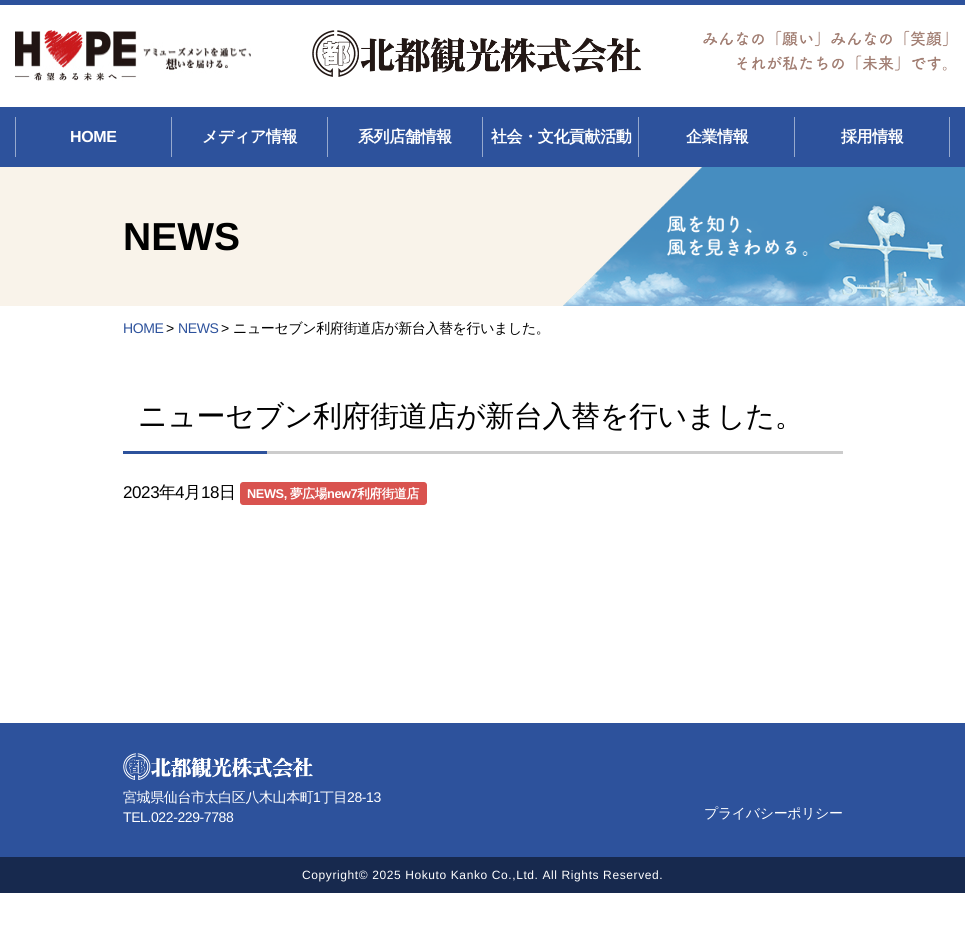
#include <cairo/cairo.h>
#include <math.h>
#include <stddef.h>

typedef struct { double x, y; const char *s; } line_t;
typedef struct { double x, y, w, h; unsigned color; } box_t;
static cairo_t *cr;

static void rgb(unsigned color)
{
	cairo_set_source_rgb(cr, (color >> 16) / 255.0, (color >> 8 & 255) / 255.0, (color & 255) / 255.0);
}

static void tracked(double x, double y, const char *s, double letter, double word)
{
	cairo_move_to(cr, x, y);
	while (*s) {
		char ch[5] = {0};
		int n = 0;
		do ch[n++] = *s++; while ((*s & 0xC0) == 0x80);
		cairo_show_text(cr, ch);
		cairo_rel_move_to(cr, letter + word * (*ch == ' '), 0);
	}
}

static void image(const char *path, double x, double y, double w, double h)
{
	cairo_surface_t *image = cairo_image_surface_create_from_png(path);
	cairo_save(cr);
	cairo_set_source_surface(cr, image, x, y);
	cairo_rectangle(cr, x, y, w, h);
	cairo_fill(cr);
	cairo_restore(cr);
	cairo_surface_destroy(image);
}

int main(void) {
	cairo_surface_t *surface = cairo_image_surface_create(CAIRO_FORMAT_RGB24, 965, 927);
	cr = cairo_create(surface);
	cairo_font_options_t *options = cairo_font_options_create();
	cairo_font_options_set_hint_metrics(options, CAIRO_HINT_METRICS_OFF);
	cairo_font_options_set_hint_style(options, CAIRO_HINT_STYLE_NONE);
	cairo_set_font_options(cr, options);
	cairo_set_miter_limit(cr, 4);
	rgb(0xffffff);
	cairo_paint(cr);
	rgb(0x2d529c);
	cairo_rectangle(cr, 0, 0, 965, 5);
	cairo_fill(cr);
	image("img/1.png", 15, 30, 236, 51);
	image("img/2.png", 312, 30, 329, 47);
	image("img/3.png", 703, 30, 245, 41);
	{
		static const box_t items[] = {
			{0, 107, 965, 60, 0x2d529c},
			{15, 117, 1, 40, 0x96a9ce},
			{171, 117, 1, 40, 0x96a9ce},
			{327, 117, 1, 40, 0x96a9ce},
			{482, 117, 1, 40, 0x96a9ce},
			{638, 117, 1, 40, 0x96a9ce},
			{949, 117, 1, 40, 0x96a9ce},
			{794, 117, 1, 40, 0x96a9ce},
			{0, 167, 703, 139, 0xf9f3ea},
		};
		for (size_t i = 0; i < sizeof items / sizeof *items; i++) {
			rgb(items[i].color);
			cairo_rectangle(cr, items[i].x, items[i].y, items[i].w, items[i].h);
			cairo_fill(cr);
		}
	}
	image("img/4.png", 563, 167, 402, 139);
	rgb(0x2d529c);
	cairo_rectangle(cr, 123, 451, 144, 3);
	cairo_fill(cr);
	rgb(0xcccccc);
	cairo_rectangle(cr, 267, 451, 576, 3);
	cairo_fill(cr);
	rgb(0xd9534f);
	cairo_new_path(cr);
	cairo_move_to(cr, 243, 482);
	cairo_line_to(cr, 284, 482);
	cairo_line_to(cr, 284, 505);
	cairo_line_to(cr, 243, 505);
	cairo_curve_to(cr, 241.5, 505, 240, 503.5, 240, 502);
	cairo_line_to(cr, 240, 485);
	cairo_curve_to(cr, 240, 483.5, 241.5, 482, 243, 482);
	cairo_close_path(cr);
	cairo_fill(cr);
	cairo_rectangle(cr, 284, 482, 6, 23);
	cairo_fill(cr);
	cairo_new_path(cr);
	cairo_move_to(cr, 290, 482);
	cairo_line_to(cr, 424, 482);
	cairo_curve_to(cr, 425.5, 482, 427, 483.5, 427, 485);
	cairo_line_to(cr, 427, 502);
	cairo_curve_to(cr, 427, 503.5, 425.5, 505, 424, 505);
	cairo_line_to(cr, 290, 505);
	cairo_close_path(cr);
	cairo_fill(cr);
	rgb(0x2d529c);
	cairo_rectangle(cr, 0, 723, 965, 134);
	cairo_fill(cr);
	image("img/5.png", 123, 753, 190, 27);
	rgb(0x17294e);
	cairo_rectangle(cr, 0, 857, 965, 36);
	cairo_fill(cr);
	cairo_select_font_face(cr, "Liberation Sans", CAIRO_FONT_SLANT_NORMAL, CAIRO_FONT_WEIGHT_BOLD);
	cairo_set_font_size(cr, 16);
	rgb(0xffffff);
	tracked(70, 142, "HOME", -0.4, 0);
	cairo_select_font_face(cr, "WenQuanYi Zen Hei", CAIRO_FONT_SLANT_NORMAL, CAIRO_FONT_WEIGHT_BOLD);
	{
		static const line_t items[] = {
			{202, 142, "メディア情報"},
			{358, 142, "系列店舗情報"},
			{491, 142, "社会・文化貢献活動"},
			{686, 142, "企業情報"},
			{841, 142, "採用情報"},
		};
		for (size_t i = 0; i < sizeof items / sizeof *items; i++) {
			tracked(items[i].x, items[i].y, items[i].s, -0.4, 0);
		}
	}
	cairo_select_font_face(cr, "Liberation Sans", CAIRO_FONT_SLANT_NORMAL, CAIRO_FONT_WEIGHT_BOLD);
	cairo_set_font_size(cr, 39);
	rgb(0x000000);
	cairo_move_to(cr, 123, 250);
	cairo_show_text(cr, "NEWS");
	cairo_select_font_face(cr, "Liberation Sans", CAIRO_FONT_SLANT_NORMAL, CAIRO_FONT_WEIGHT_NORMAL);
	cairo_set_font_size(cr, 14);
	rgb(0x2d529c);
	tracked(123, 333, "HOME", -0.4, 0);
	rgb(0x000000);
	tracked(166, 333, ">", -0.4, 0);
	rgb(0x2d529c);
	tracked(178, 333, "NEWS", -0.4, 0);
	rgb(0x000000);
	tracked(221, 333, ">", -0.4, 0);
	cairo_select_font_face(cr, "WenQuanYi Zen Hei Medium", CAIRO_FONT_SLANT_NORMAL, CAIRO_FONT_WEIGHT_NORMAL);
	tracked(233, 333, "ニューセブン利府街道店が新台入替を行いました。", -0.4, 0);
	cairo_set_font_size(cr, 29);
	tracked(138, 426, "ニューセブン利府街道店が新台入替を行いました。", -0.4, 0);
	cairo_select_font_face(cr, "Liberation Sans", CAIRO_FONT_SLANT_NORMAL, CAIRO_FONT_WEIGHT_NORMAL);
	cairo_set_font_size(cr, 17);
	tracked(123, 498, "2023", -0.4, 0);
	cairo_select_font_face(cr, "WenQuanYi Zen Hei Medium", CAIRO_FONT_SLANT_NORMAL, CAIRO_FONT_WEIGHT_NORMAL);
	tracked(159, 498, "年", -0.4, 0);
	cairo_select_font_face(cr, "Liberation Sans", CAIRO_FONT_SLANT_NORMAL, CAIRO_FONT_WEIGHT_NORMAL);
	tracked(175, 498, "4", -0.4, 0);
	cairo_select_font_face(cr, "WenQuanYi Zen Hei Medium", CAIRO_FONT_SLANT_NORMAL, CAIRO_FONT_WEIGHT_NORMAL);
	tracked(184, 498, "月", -0.4, 0);
	cairo_select_font_face(cr, "Liberation Sans", CAIRO_FONT_SLANT_NORMAL, CAIRO_FONT_WEIGHT_NORMAL);
	tracked(201, 498, "18", -0.4, 0);
	cairo_select_font_face(cr, "WenQuanYi Zen Hei Medium", CAIRO_FONT_SLANT_NORMAL, CAIRO_FONT_WEIGHT_NORMAL);
	tracked(219, 498, "日", -0.4, 0);
	cairo_select_font_face(cr, "Liberation Sans", CAIRO_FONT_SLANT_NORMAL, CAIRO_FONT_WEIGHT_BOLD);
	cairo_set_font_size(cr, 12.75);
	rgb(0xffffff);
	tracked(247, 498, "NEWS,", -0.4, 0);
	cairo_select_font_face(cr, "WenQuanYi Zen Hei", CAIRO_FONT_SLANT_NORMAL, CAIRO_FONT_WEIGHT_BOLD);
	tracked(290, 498, "夢広場", -0.4, 0);
	cairo_select_font_face(cr, "Liberation Sans", CAIRO_FONT_SLANT_NORMAL, CAIRO_FONT_WEIGHT_BOLD);
	tracked(327, 498, "new7", -0.4, 0);
	cairo_select_font_face(cr, "WenQuanYi Zen Hei", CAIRO_FONT_SLANT_NORMAL, CAIRO_FONT_WEIGHT_BOLD);
	tracked(357, 498, "利府街道店", -0.4, 0);
	cairo_select_font_face(cr, "WenQuanYi Zen Hei Medium", CAIRO_FONT_SLANT_NORMAL, CAIRO_FONT_WEIGHT_NORMAL);
	cairo_set_font_size(cr, 14);
	tracked(123, 802, "宮城県仙台市太白区八木山本町", -0.4, 0);
	cairo_select_font_face(cr, "Liberation Sans", CAIRO_FONT_SLANT_NORMAL, CAIRO_FONT_WEIGHT_NORMAL);
	tracked(313, 802, "1", -0.4, 0);
	cairo_select_font_face(cr, "WenQuanYi Zen Hei Medium", CAIRO_FONT_SLANT_NORMAL, CAIRO_FONT_WEIGHT_NORMAL);
	tracked(320, 802, "丁目", -0.4, 0);
	cairo_select_font_face(cr, "Liberation Sans", CAIRO_FONT_SLANT_NORMAL, CAIRO_FONT_WEIGHT_NORMAL);
	tracked(347, 802, "28-13", -0.4, 0);
	tracked(123, 822, "TEL.022-229-7788", -0.4, 0);
	cairo_select_font_face(cr, "WenQuanYi Zen Hei Medium", CAIRO_FONT_SLANT_NORMAL, CAIRO_FONT_WEIGHT_NORMAL);
	tracked(704, 818, "プライバシーポリシー", -0.4, 0);
	cairo_select_font_face(cr, "Liberation Sans", CAIRO_FONT_SLANT_NORMAL, CAIRO_FONT_WEIGHT_NORMAL);
	cairo_set_font_size(cr, 12);
	tracked(302, 879, "Copyright© 2025 Hokuto Kanko Co.,Ltd. All Rights Reserved.", 0.6, 0);
	cairo_surface_write_to_png(surface, "page.png");
	cairo_font_options_destroy(options);
	cairo_destroy(cr);
	cairo_surface_destroy(surface);
	return 0;
}
